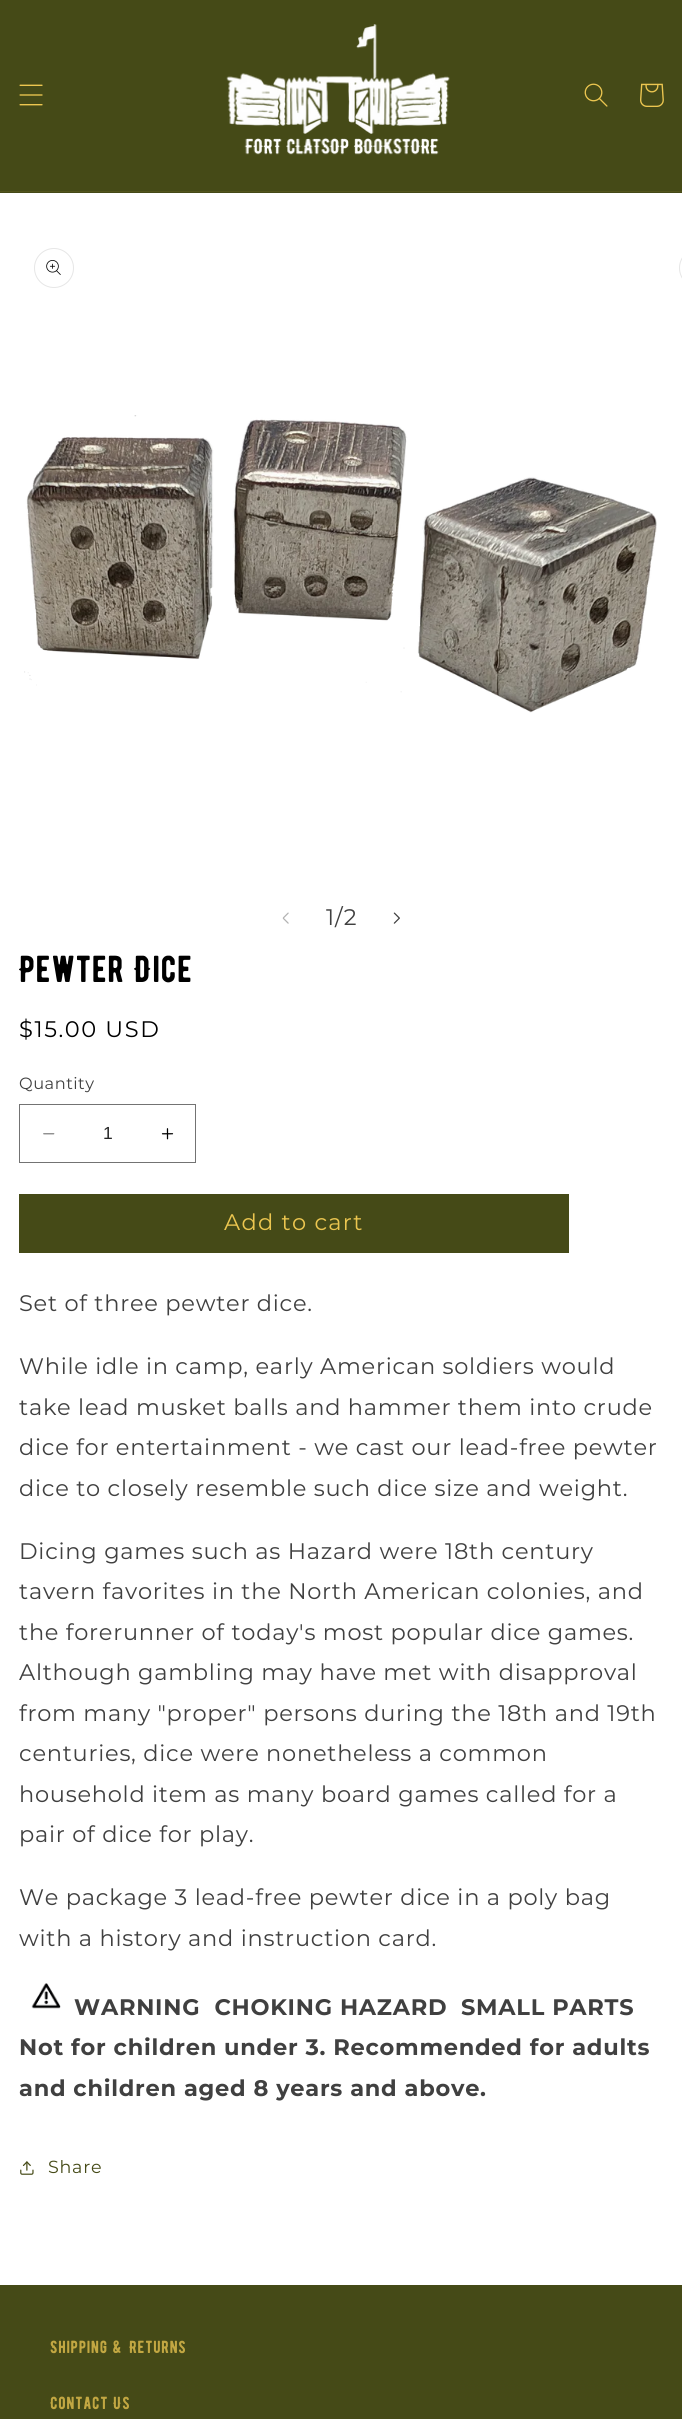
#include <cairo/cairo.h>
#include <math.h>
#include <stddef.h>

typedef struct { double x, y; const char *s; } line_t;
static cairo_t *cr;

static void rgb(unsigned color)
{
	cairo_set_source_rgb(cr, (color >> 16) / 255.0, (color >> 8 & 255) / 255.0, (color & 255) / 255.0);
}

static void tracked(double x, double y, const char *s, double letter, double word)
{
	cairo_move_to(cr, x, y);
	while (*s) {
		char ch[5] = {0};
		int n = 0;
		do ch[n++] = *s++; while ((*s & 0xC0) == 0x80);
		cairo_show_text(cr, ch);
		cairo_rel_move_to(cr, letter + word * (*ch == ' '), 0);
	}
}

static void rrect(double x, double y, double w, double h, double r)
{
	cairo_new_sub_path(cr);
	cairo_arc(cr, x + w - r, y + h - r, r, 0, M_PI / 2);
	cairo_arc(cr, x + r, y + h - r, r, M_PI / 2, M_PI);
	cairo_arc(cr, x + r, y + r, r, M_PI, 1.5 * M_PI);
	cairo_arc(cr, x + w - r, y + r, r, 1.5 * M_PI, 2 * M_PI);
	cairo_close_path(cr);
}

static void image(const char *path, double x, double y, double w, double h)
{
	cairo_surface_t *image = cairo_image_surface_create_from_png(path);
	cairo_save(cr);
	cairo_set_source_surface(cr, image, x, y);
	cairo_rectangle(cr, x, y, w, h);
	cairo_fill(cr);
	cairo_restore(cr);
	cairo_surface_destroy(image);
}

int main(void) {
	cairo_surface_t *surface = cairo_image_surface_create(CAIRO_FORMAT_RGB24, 682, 2419);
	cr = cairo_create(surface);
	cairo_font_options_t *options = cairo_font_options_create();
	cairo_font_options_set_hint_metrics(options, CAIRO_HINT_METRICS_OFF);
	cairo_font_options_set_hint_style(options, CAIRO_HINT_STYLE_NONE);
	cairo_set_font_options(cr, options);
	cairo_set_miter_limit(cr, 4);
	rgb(0xffffff);
	cairo_paint(cr);
	rgb(0x454a17);
	cairo_rectangle(cr, 0, 0, 682, 193);
	cairo_fill(cr);
	rgb(0x52541c);
	cairo_rectangle(cr, 0, 191, 682, 1);
	cairo_fill(cr);
	image("img/1.png", 19, 84, 24, 22);
	image("img/2.png", 226, 24, 224, 131);
	image("img/3.png", 584, 83, 24, 24);
	image("img/4.png", 640, 83, 24, 24);
	cairo_arc(cr, 54, 268, 19.5, 0, 2 * M_PI);
	rgb(0xe6e6e6);
	cairo_set_line_width(cr, 1);
	cairo_stroke(cr);
	image("img/5.png", 46, 260, 15, 15);
	image("img/6.png", 24, 415, 633, 298);
	rrect(679.5, 248.5, 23, 39, 19.5);
	cairo_stroke(cr);
	image("img/7.png", 282, 912, 7, 12);
	image("img/8.png", 393, 912, 7, 12);
	image("img/9.png", 43, 1133, 12, 2);
	image("img/10.png", 161, 1128, 13, 12);
	cairo_rectangle(cr, 19.5, 1104.5, 176, 58);
	rgb(0x737373);
	cairo_stroke(cr);
	rgb(0x454a17);
	cairo_rectangle(cr, 19, 1194, 550, 59);
	cairo_fill(cr);
	image("img/11.png", 31, 1983, 30, 26);
	image("img/12.png", 20, 2161, 14, 14);
	cairo_rectangle(cr, 0, 2285, 682, 134);
	cairo_fill(cr);
	cairo_select_font_face(cr, "Montserrat", CAIRO_FONT_SLANT_NORMAL, CAIRO_FONT_WEIGHT_NORMAL);
	cairo_set_font_size(cr, 22.5);
	rgb(0x404040);
	tracked(326, 925, "1/2", 1, 0);
	cairo_select_font_face(cr, "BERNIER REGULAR", CAIRO_FONT_SLANT_NORMAL, CAIRO_FONT_WEIGHT_NORMAL);
	cairo_set_font_size(cr, 37.5);
	rgb(0x000000);
	tracked(19, 982, "Pewter Dice", 0.75, 0);
	cairo_select_font_face(cr, "Montserrat", CAIRO_FONT_SLANT_NORMAL, CAIRO_FONT_WEIGHT_NORMAL);
	cairo_set_font_size(cr, 22.5);
	tracked(19, 1037, "$15.00 USD", 1.6, 0);
	cairo_set_font_size(cr, 16.25);
	rgb(0x404040);
	tracked(19, 1089, "Quantity", 0.5, 0);
	cairo_select_font_face(cr, "Liberation Sans", CAIRO_FONT_SLANT_NORMAL, CAIRO_FONT_WEIGHT_NORMAL);
	cairo_set_font_size(cr, 17.5);
	rgb(0x262626);
	cairo_move_to(cr, 103, 1139);
	cairo_show_text(cr, "1");
	cairo_select_font_face(cr, "Montserrat", CAIRO_FONT_SLANT_NORMAL, CAIRO_FONT_WEIGHT_NORMAL);
	cairo_set_font_size(cr, 22.5);
	rgb(0xecc650);
	tracked(224, 1230, "Add to cart", 1.25, 0);
	rgb(0x404040);
	{
		static const line_t items[] = {
			{19, 1311, "Set of three pewter dice."},
			{19, 1374, "While idle in camp, early American soldiers would"},
			{19, 1415, "take lead musket balls and hammer them into crude"},
			{19, 1455, "dice for entertainment - we cast our lead-free pewter"},
			{19, 1496, "dice to closely resemble such dice size and weight."},
			{19, 1559, "Dicing games such as Hazard were 18th century"},
			{19, 1599, "tavern favorites in the North American colonies, and"},
			{19, 1640, "the forerunner of today's most popular dice games."},
			{19, 1680, "Although gambling may have met with disapproval"},
			{19, 1721, "from many \"proper\" persons during the 18th and 19th"},
			{19, 1761, "centuries, dice were nonetheless a common"},
			{19, 1802, "household item as many board games called for a"},
			{19, 1842, "pair of dice for play."},
			{19, 1905, "We package 3 lead-free pewter dice in a poly bag"},
			{19, 1946, "with a history and instruction card."},
		};
		for (size_t i = 0; i < sizeof items / sizeof *items; i++) {
			tracked(items[i].x, items[i].y, items[i].s, 0.75, 0);
		}
	}
	cairo_select_font_face(cr, "Montserrat", CAIRO_FONT_SLANT_NORMAL, CAIRO_FONT_WEIGHT_BOLD);
	{
		static const line_t items[] = {
			{74, 2015, "WARNING  CHOKING HAZARD"},
			{461, 2015, "SMALL PARTS"},
			{19, 2055, "Not for children under 3. Recommended for adults"},
			{19, 2096, "and children aged 8 years and above."},
		};
		for (size_t i = 0; i < sizeof items / sizeof *items; i++) {
			tracked(items[i].x, items[i].y, items[i].s, 0.75, 0);
		}
	}
	cairo_select_font_face(cr, "Montserrat", CAIRO_FONT_SLANT_NORMAL, CAIRO_FONT_WEIGHT_NORMAL);
	cairo_set_font_size(cr, 17.5);
	rgb(0x454a17);
	tracked(48, 2173, "Share", 0.75, 0);
	cairo_select_font_face(cr, "BERNIER REGULAR", CAIRO_FONT_SLANT_NORMAL, CAIRO_FONT_WEIGHT_NORMAL);
	rgb(0xc2a742);
	tracked(50, 2353, "Shipping & Returns", 0.75, 0);
	tracked(50, 2409, "Contact Us", 0.75, 0);
	cairo_surface_write_to_png(surface, "page.png");
	cairo_font_options_destroy(options);
	cairo_destroy(cr);
	cairo_surface_destroy(surface);
	return 0;
}
